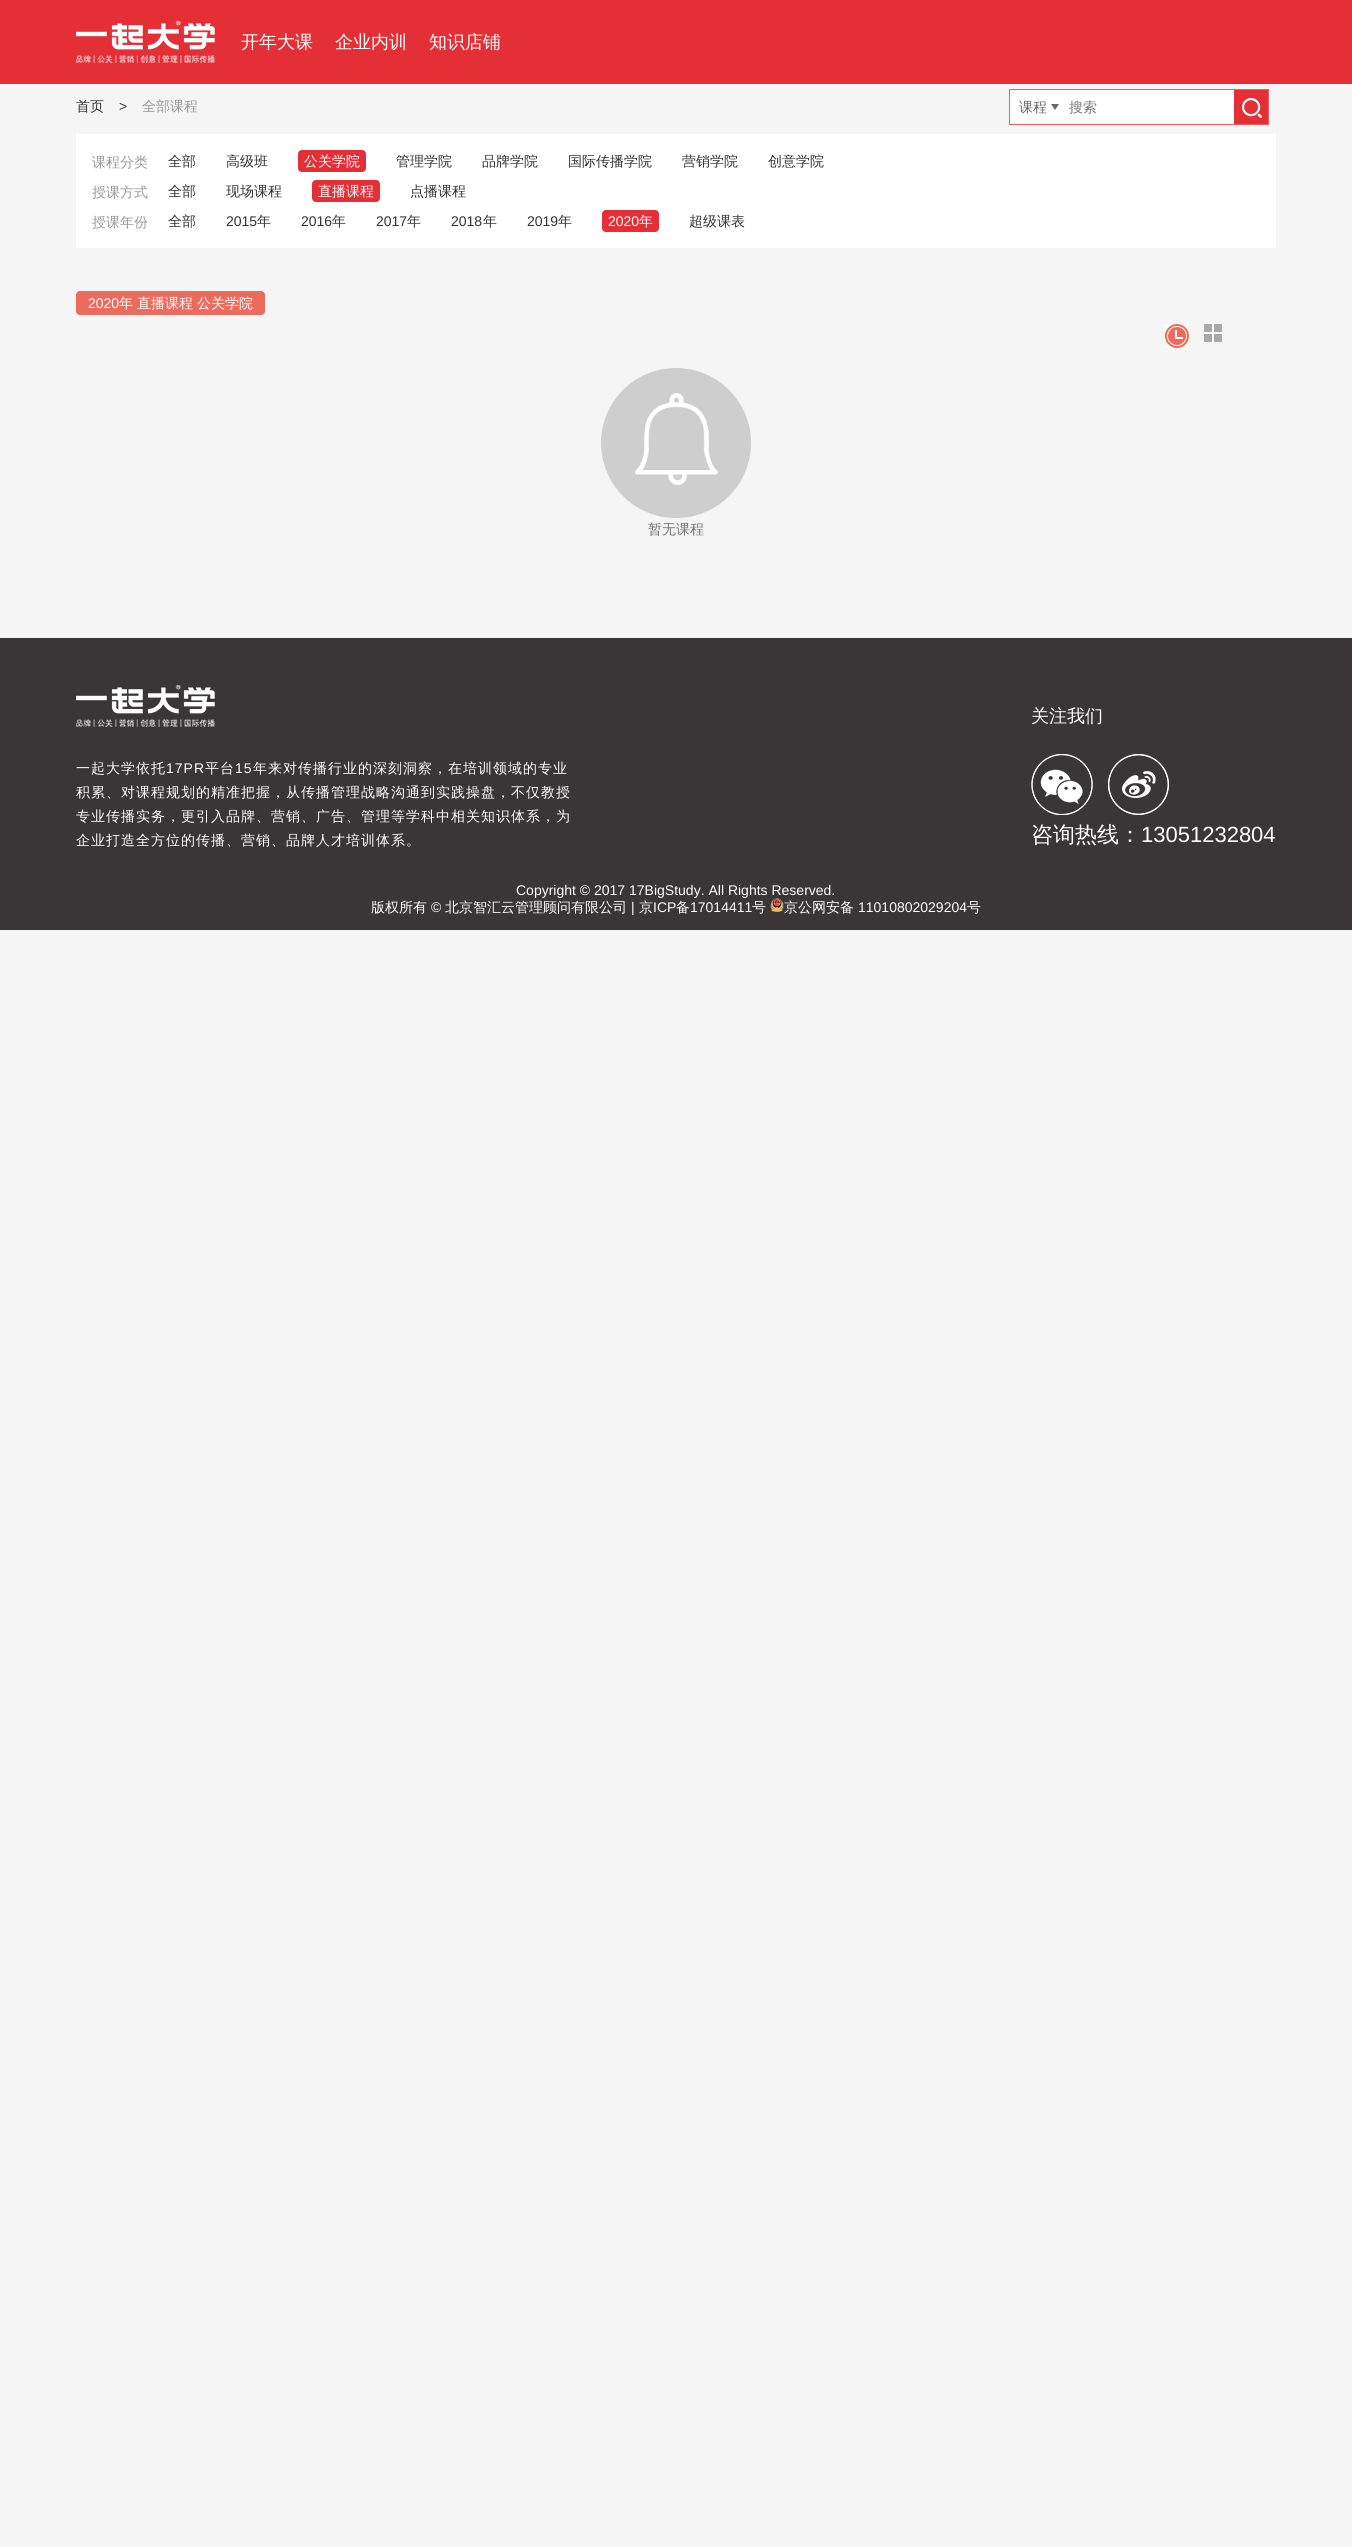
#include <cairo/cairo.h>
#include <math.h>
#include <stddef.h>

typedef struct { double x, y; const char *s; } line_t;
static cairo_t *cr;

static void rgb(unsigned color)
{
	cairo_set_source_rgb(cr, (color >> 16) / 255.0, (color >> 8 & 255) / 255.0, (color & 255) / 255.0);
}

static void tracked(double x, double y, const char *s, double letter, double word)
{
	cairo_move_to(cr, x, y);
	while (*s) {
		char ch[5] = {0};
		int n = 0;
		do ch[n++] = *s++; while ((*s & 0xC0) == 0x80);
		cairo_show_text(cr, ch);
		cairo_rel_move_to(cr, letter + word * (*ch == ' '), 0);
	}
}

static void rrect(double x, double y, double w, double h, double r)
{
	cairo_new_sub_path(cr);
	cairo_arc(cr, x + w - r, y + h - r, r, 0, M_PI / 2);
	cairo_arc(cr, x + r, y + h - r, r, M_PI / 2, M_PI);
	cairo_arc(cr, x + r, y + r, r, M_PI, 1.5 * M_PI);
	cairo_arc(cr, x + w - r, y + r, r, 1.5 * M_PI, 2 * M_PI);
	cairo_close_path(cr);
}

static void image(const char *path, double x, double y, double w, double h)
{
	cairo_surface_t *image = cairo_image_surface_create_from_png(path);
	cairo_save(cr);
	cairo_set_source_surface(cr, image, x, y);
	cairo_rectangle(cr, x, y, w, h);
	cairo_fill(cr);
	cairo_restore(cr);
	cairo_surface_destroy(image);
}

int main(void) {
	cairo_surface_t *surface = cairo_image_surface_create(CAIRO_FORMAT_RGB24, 1352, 2547);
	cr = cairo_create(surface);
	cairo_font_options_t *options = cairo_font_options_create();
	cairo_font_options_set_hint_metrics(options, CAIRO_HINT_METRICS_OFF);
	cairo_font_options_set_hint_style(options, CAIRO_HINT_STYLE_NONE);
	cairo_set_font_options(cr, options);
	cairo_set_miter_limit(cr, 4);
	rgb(0xf5f5f5);
	cairo_paint(cr);
	rgb(0xe32f35);
	cairo_rectangle(cr, 0, 0, 1352, 84);
	cairo_fill(cr);
	image("img/1.png", 76, 21, 139, 42);
	rgb(0xffffff);
	cairo_rectangle(cr, 1010, 90, 224, 34);
	cairo_fill(cr);
	cairo_rectangle(cr, 1009.5, 89.5, 259, 35);
	rgb(0xea5f64);
	cairo_set_line_width(cr, 1);
	cairo_stroke(cr);
	rgb(0x666666);
	cairo_new_path(cr);
	cairo_move_to(cr, 1051, 104);
	cairo_line_to(cr, 1059, 104);
	cairo_line_to(cr, 1055, 110);
	cairo_close_path(cr);
	cairo_fill(cr);
	image("img/2.png", 1234, 90, 34, 34);
	rgb(0xffffff);
	cairo_rectangle(cr, 76, 134, 1200, 114);
	cairo_fill(cr);
	rgb(0xe32f35);
	rrect(298, 150, 68, 22, 4);
	cairo_fill(cr);
	rrect(312, 180, 68, 22, 4);
	cairo_fill(cr);
	rrect(602, 210, 57, 22, 4);
	cairo_fill(cr);
	rgb(0xeb6b5c);
	rrect(76, 291, 189, 24, 4);
	cairo_fill(cr);
	image("img/3.png", 1165, 324, 24, 24);
	image("img/4.png", 1204, 324, 18, 18);
	image("img/5.png", 601, 368, 150, 150);
	rgb(0x383637);
	cairo_rectangle(cr, 0, 638, 1352, 292);
	cairo_fill(cr);
	image("img/6.png", 76, 685, 139, 42);
	image("img/7.png", 1031, 754, 62, 61);
	image("img/8.png", 1108, 754, 61, 61);
	image("img/9.png", 770, 898, 14, 14);
	cairo_select_font_face(cr, "WenQuanYi Zen Hei Medium", CAIRO_FONT_SLANT_NORMAL, CAIRO_FONT_WEIGHT_NORMAL);
	cairo_set_font_size(cr, 18);
	rgb(0xffffff);
	{
		static const line_t items[] = {
			{241, 48, "开年大课"},
			{335, 48, "企业内训"},
			{429, 48, "知识店铺"},
		};
		for (size_t i = 0; i < sizeof items / sizeof *items; i++) {
			cairo_move_to(cr, items[i].x, items[i].y);
			cairo_show_text(cr, items[i].s);
		}
	}
	cairo_set_font_size(cr, 14);
	rgb(0x333333);
	cairo_move_to(cr, 76, 111);
	cairo_show_text(cr, "首页");
	cairo_select_font_face(cr, "Liberation Sans", CAIRO_FONT_SLANT_NORMAL, CAIRO_FONT_WEIGHT_NORMAL);
	cairo_move_to(cr, 119, 111);
	cairo_show_text(cr, ">");
	cairo_select_font_face(cr, "WenQuanYi Zen Hei Medium", CAIRO_FONT_SLANT_NORMAL, CAIRO_FONT_WEIGHT_NORMAL);
	rgb(0x999999);
	cairo_move_to(cr, 142, 111);
	cairo_show_text(cr, "全部课程");
	rgb(0x666666);
	cairo_move_to(cr, 1019, 112);
	cairo_show_text(cr, "课程");
	rgb(0x757575);
	cairo_move_to(cr, 1069, 112);
	cairo_show_text(cr, "搜索");
	rgb(0x999999);
	cairo_move_to(cr, 92, 167);
	cairo_show_text(cr, "课程分类");
	rgb(0x333333);
	cairo_move_to(cr, 168, 166);
	cairo_show_text(cr, "全部");
	cairo_move_to(cr, 226, 166);
	cairo_show_text(cr, "高级班");
	rgb(0xffffff);
	cairo_move_to(cr, 304, 166);
	cairo_show_text(cr, "公关学院");
	rgb(0x333333);
	{
		static const line_t items[] = {
			{396, 166, "管理学院"},
			{482, 166, "品牌学院"},
			{568, 166, "国际传播学院"},
			{682, 166, "营销学院"},
			{768, 166, "创意学院"},
		};
		for (size_t i = 0; i < sizeof items / sizeof *items; i++) {
			cairo_move_to(cr, items[i].x, items[i].y);
			cairo_show_text(cr, items[i].s);
		}
	}
	rgb(0x999999);
	cairo_move_to(cr, 92, 197);
	cairo_show_text(cr, "授课方式");
	rgb(0x333333);
	cairo_move_to(cr, 168, 196);
	cairo_show_text(cr, "全部");
	cairo_move_to(cr, 226, 196);
	cairo_show_text(cr, "现场课程");
	rgb(0xffffff);
	cairo_move_to(cr, 318, 196);
	cairo_show_text(cr, "直播课程");
	rgb(0x333333);
	cairo_move_to(cr, 410, 196);
	cairo_show_text(cr, "点播课程");
	rgb(0x999999);
	cairo_move_to(cr, 92, 227);
	cairo_show_text(cr, "授课年份");
	rgb(0x333333);
	cairo_move_to(cr, 168, 226);
	cairo_show_text(cr, "全部");
	cairo_select_font_face(cr, "Liberation Sans", CAIRO_FONT_SLANT_NORMAL, CAIRO_FONT_WEIGHT_NORMAL);
	cairo_move_to(cr, 226, 226);
	cairo_show_text(cr, "2015");
	cairo_select_font_face(cr, "WenQuanYi Zen Hei Medium", CAIRO_FONT_SLANT_NORMAL, CAIRO_FONT_WEIGHT_NORMAL);
	cairo_move_to(cr, 257, 226);
	cairo_show_text(cr, "年");
	cairo_select_font_face(cr, "Liberation Sans", CAIRO_FONT_SLANT_NORMAL, CAIRO_FONT_WEIGHT_NORMAL);
	cairo_move_to(cr, 301, 226);
	cairo_show_text(cr, "2016");
	cairo_select_font_face(cr, "WenQuanYi Zen Hei Medium", CAIRO_FONT_SLANT_NORMAL, CAIRO_FONT_WEIGHT_NORMAL);
	cairo_move_to(cr, 332, 226);
	cairo_show_text(cr, "年");
	cairo_select_font_face(cr, "Liberation Sans", CAIRO_FONT_SLANT_NORMAL, CAIRO_FONT_WEIGHT_NORMAL);
	cairo_move_to(cr, 376, 226);
	cairo_show_text(cr, "2017");
	cairo_select_font_face(cr, "WenQuanYi Zen Hei Medium", CAIRO_FONT_SLANT_NORMAL, CAIRO_FONT_WEIGHT_NORMAL);
	cairo_move_to(cr, 407, 226);
	cairo_show_text(cr, "年");
	cairo_select_font_face(cr, "Liberation Sans", CAIRO_FONT_SLANT_NORMAL, CAIRO_FONT_WEIGHT_NORMAL);
	cairo_move_to(cr, 451, 226);
	cairo_show_text(cr, "2018");
	cairo_select_font_face(cr, "WenQuanYi Zen Hei Medium", CAIRO_FONT_SLANT_NORMAL, CAIRO_FONT_WEIGHT_NORMAL);
	cairo_move_to(cr, 483, 226);
	cairo_show_text(cr, "年");
	cairo_select_font_face(cr, "Liberation Sans", CAIRO_FONT_SLANT_NORMAL, CAIRO_FONT_WEIGHT_NORMAL);
	cairo_move_to(cr, 527, 226);
	cairo_show_text(cr, "2019");
	cairo_select_font_face(cr, "WenQuanYi Zen Hei Medium", CAIRO_FONT_SLANT_NORMAL, CAIRO_FONT_WEIGHT_NORMAL);
	cairo_move_to(cr, 558, 226);
	cairo_show_text(cr, "年");
	cairo_select_font_face(cr, "Liberation Sans", CAIRO_FONT_SLANT_NORMAL, CAIRO_FONT_WEIGHT_NORMAL);
	rgb(0xffffff);
	cairo_move_to(cr, 608, 226);
	cairo_show_text(cr, "2020");
	cairo_select_font_face(cr, "WenQuanYi Zen Hei Medium", CAIRO_FONT_SLANT_NORMAL, CAIRO_FONT_WEIGHT_NORMAL);
	cairo_move_to(cr, 639, 226);
	cairo_show_text(cr, "年");
	rgb(0x333333);
	cairo_move_to(cr, 689, 226);
	cairo_show_text(cr, "超级课表");
	cairo_select_font_face(cr, "Liberation Sans", CAIRO_FONT_SLANT_NORMAL, CAIRO_FONT_WEIGHT_NORMAL);
	rgb(0xffffff);
	cairo_move_to(cr, 88, 308);
	cairo_show_text(cr, "2020");
	cairo_select_font_face(cr, "WenQuanYi Zen Hei Medium", CAIRO_FONT_SLANT_NORMAL, CAIRO_FONT_WEIGHT_NORMAL);
	{
		static const line_t items[] = {
			{119, 308, "年"},
			{137, 308, "直播课程"},
			{197, 308, "公关学院"},
		};
		for (size_t i = 0; i < sizeof items / sizeof *items; i++) {
			cairo_move_to(cr, items[i].x, items[i].y);
			cairo_show_text(cr, items[i].s);
		}
	}
	rgb(0x757575);
	cairo_move_to(cr, 648, 534);
	cairo_show_text(cr, "暂无课程");
	rgb(0xffffff);
	tracked(76, 773, "一起大学依托", 1, 0);
	cairo_select_font_face(cr, "Liberation Sans", CAIRO_FONT_SLANT_NORMAL, CAIRO_FONT_WEIGHT_NORMAL);
	tracked(166, 773, "17PR", 1, 0);
	cairo_select_font_face(cr, "WenQuanYi Zen Hei Medium", CAIRO_FONT_SLANT_NORMAL, CAIRO_FONT_WEIGHT_NORMAL);
	tracked(205, 773, "平台", 1, 0);
	cairo_select_font_face(cr, "Liberation Sans", CAIRO_FONT_SLANT_NORMAL, CAIRO_FONT_WEIGHT_NORMAL);
	tracked(235, 773, "15", 1, 0);
	cairo_select_font_face(cr, "WenQuanYi Zen Hei Medium", CAIRO_FONT_SLANT_NORMAL, CAIRO_FONT_WEIGHT_NORMAL);
	{
		static const line_t items[] = {
			{253, 773, "年来对传播行业的深刻洞察，在培训领域的专业"},
			{76, 797, "积累、对课程规划的精准把握，从传播管理战略沟通到实践操盘，不仅教授"},
			{76, 821, "专业传播实务，更引入品牌、营销、广告、管理等学科中相关知识体系，为"},
			{76, 845, "企业打造全方位的传播、营销、品牌人才培训体系。"},
		};
		for (size_t i = 0; i < sizeof items / sizeof *items; i++) {
			tracked(items[i].x, items[i].y, items[i].s, 1, 0);
		}
	}
	cairo_set_font_size(cr, 18);
	cairo_move_to(cr, 1031, 722);
	cairo_show_text(cr, "关注我们");
	cairo_set_font_size(cr, 22);
	cairo_move_to(cr, 1031, 842);
	cairo_show_text(cr, "咨询热线：");
	cairo_select_font_face(cr, "Liberation Sans", CAIRO_FONT_SLANT_NORMAL, CAIRO_FONT_WEIGHT_NORMAL);
	cairo_move_to(cr, 1141, 842);
	cairo_show_text(cr, "13051232804");
	cairo_set_font_size(cr, 14);
	cairo_move_to(cr, 516, 895);
	cairo_show_text(cr, "Copyright © 2017 17BigStudy. All Rights Reserved.");
	cairo_select_font_face(cr, "WenQuanYi Zen Hei Medium", CAIRO_FONT_SLANT_NORMAL, CAIRO_FONT_WEIGHT_NORMAL);
	cairo_move_to(cr, 371, 912);
	cairo_show_text(cr, "版权所有");
	cairo_select_font_face(cr, "Liberation Sans", CAIRO_FONT_SLANT_NORMAL, CAIRO_FONT_WEIGHT_NORMAL);
	cairo_move_to(cr, 431, 912);
	cairo_show_text(cr, "©");
	cairo_select_font_face(cr, "WenQuanYi Zen Hei Medium", CAIRO_FONT_SLANT_NORMAL, CAIRO_FONT_WEIGHT_NORMAL);
	cairo_move_to(cr, 445, 912);
	cairo_show_text(cr, "北京智汇云管理顾问有限公司");
	cairo_select_font_face(cr, "Liberation Sans", CAIRO_FONT_SLANT_NORMAL, CAIRO_FONT_WEIGHT_NORMAL);
	cairo_move_to(cr, 631, 912);
	cairo_show_text(cr, "|");
	cairo_select_font_face(cr, "WenQuanYi Zen Hei Medium", CAIRO_FONT_SLANT_NORMAL, CAIRO_FONT_WEIGHT_NORMAL);
	cairo_move_to(cr, 639, 912);
	cairo_show_text(cr, "京");
	cairo_select_font_face(cr, "Liberation Sans", CAIRO_FONT_SLANT_NORMAL, CAIRO_FONT_WEIGHT_NORMAL);
	cairo_move_to(cr, 653, 912);
	cairo_show_text(cr, "ICP");
	cairo_select_font_face(cr, "WenQuanYi Zen Hei Medium", CAIRO_FONT_SLANT_NORMAL, CAIRO_FONT_WEIGHT_NORMAL);
	cairo_move_to(cr, 676, 912);
	cairo_show_text(cr, "备");
	cairo_select_font_face(cr, "Liberation Sans", CAIRO_FONT_SLANT_NORMAL, CAIRO_FONT_WEIGHT_NORMAL);
	cairo_move_to(cr, 690, 912);
	cairo_show_text(cr, "17014411");
	cairo_select_font_face(cr, "WenQuanYi Zen Hei Medium", CAIRO_FONT_SLANT_NORMAL, CAIRO_FONT_WEIGHT_NORMAL);
	cairo_move_to(cr, 752, 912);
	cairo_show_text(cr, "号");
	cairo_move_to(cr, 784, 912);
	cairo_show_text(cr, "京公网安备");
	cairo_select_font_face(cr, "Liberation Sans", CAIRO_FONT_SLANT_NORMAL, CAIRO_FONT_WEIGHT_NORMAL);
	cairo_move_to(cr, 858, 912);
	cairo_show_text(cr, "11010802029204");
	cairo_select_font_face(cr, "WenQuanYi Zen Hei Medium", CAIRO_FONT_SLANT_NORMAL, CAIRO_FONT_WEIGHT_NORMAL);
	cairo_move_to(cr, 967, 912);
	cairo_show_text(cr, "号");
	cairo_surface_write_to_png(surface, "page.png");
	cairo_font_options_destroy(options);
	cairo_destroy(cr);
	cairo_surface_destroy(surface);
	return 0;
}
